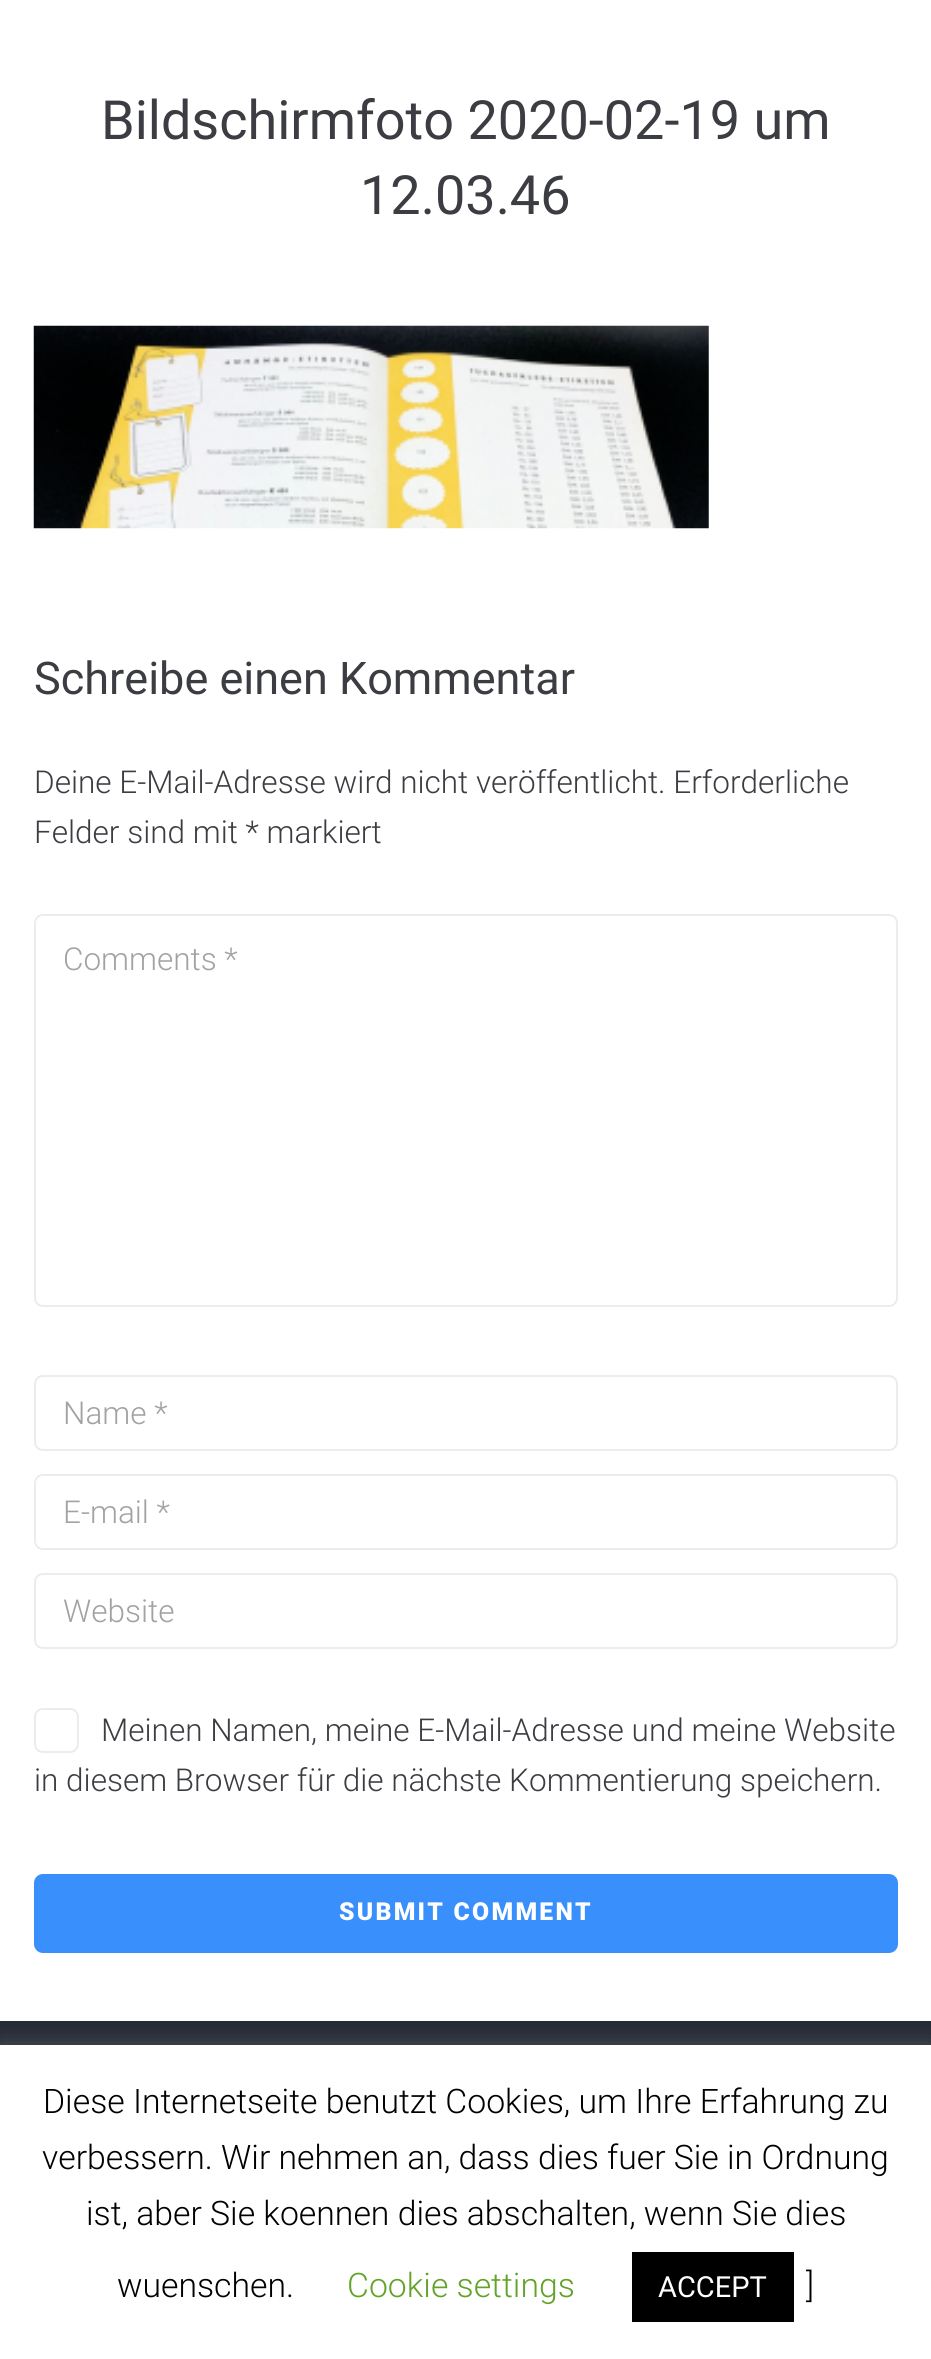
#include <cairo/cairo.h>
#include <math.h>
#include <stddef.h>

typedef struct { double x, y; const char *s; } line_t;
static cairo_t *cr;

static void rgb(unsigned color)
{
	cairo_set_source_rgb(cr, (color >> 16) / 255.0, (color >> 8 & 255) / 255.0, (color & 255) / 255.0);
}

static void tracked(double x, double y, const char *s, double letter, double word)
{
	cairo_move_to(cr, x, y);
	while (*s) {
		char ch[5] = {0};
		int n = 0;
		do ch[n++] = *s++; while ((*s & 0xC0) == 0x80);
		cairo_show_text(cr, ch);
		cairo_rel_move_to(cr, letter + word * (*ch == ' '), 0);
	}
}

static void rrect(double x, double y, double w, double h, double r)
{
	cairo_new_sub_path(cr);
	cairo_arc(cr, x + w - r, y + h - r, r, 0, M_PI / 2);
	cairo_arc(cr, x + r, y + h - r, r, M_PI / 2, M_PI);
	cairo_arc(cr, x + r, y + r, r, M_PI, 1.5 * M_PI);
	cairo_arc(cr, x + w - r, y + r, r, 1.5 * M_PI, 2 * M_PI);
	cairo_close_path(cr);
}

static void soft_shadow(double x, double y, double w, double h, double r, double blur, double alpha)
{
	cairo_push_group_with_content(cr, CAIRO_CONTENT_ALPHA);
	cairo_set_operator(cr, CAIRO_OPERATOR_SOURCE);
	for (int i = 15; i >= -15 && fmin(w, h) + blur * i / 3 > 0; i -= 2) {
		double e = blur * i / 6;
		cairo_set_source_rgba(cr, 0, 0, 0, alpha * erfc((i - 1) / 8.5) / 2);
		rrect(x - e, y - e, w + 2 * e, h + 2 * e, fmax(0, fmin(r + e + blur * .6, fmin(w, h) / 2 + e)));
		cairo_fill(cr);
	}
	cairo_pattern_t *soft = cairo_pop_group(cr);
	cairo_mask(cr, soft);
	cairo_pattern_destroy(soft);
}

static void image(const char *path, double x, double y, double w, double h)
{
	cairo_surface_t *image = cairo_image_surface_create_from_png(path);
	cairo_save(cr);
	cairo_set_source_surface(cr, image, x, y);
	cairo_rectangle(cr, x, y, w, h);
	cairo_fill(cr);
	cairo_restore(cr);
	cairo_surface_destroy(image);
}

int main(void) {
	cairo_surface_t *surface = cairo_image_surface_create(CAIRO_FORMAT_RGB24, 931, 2359);
	cr = cairo_create(surface);
	cairo_font_options_t *options = cairo_font_options_create();
	cairo_font_options_set_hint_metrics(options, CAIRO_HINT_METRICS_OFF);
	cairo_font_options_set_hint_style(options, CAIRO_HINT_STYLE_NONE);
	cairo_set_font_options(cr, options);
	cairo_set_miter_limit(cr, 4);
	rgb(0xffffff);
	cairo_paint(cr);
	image("img/1.png", 33, 325, 676, 204);
	rrect(35, 915, 862, 391, 8);
	rgb(0xebeced);
	cairo_stroke(cr);
	rrect(35, 1376, 862, 74, 8);
	cairo_stroke(cr);
	rrect(35, 1475, 862, 74, 8);
	cairo_stroke(cr);
	rrect(35, 1574, 862, 74, 8);
	cairo_stroke(cr);
	rrect(35, 1709, 43, 43, 8);
	cairo_stroke(cr);
	rgb(0x398ffc);
	rrect(34, 1874, 864, 79, 9);
	cairo_fill(cr);
	rgb(0x232a34);
	cairo_rectangle(cr, 0, 2021, 931, 24);
	cairo_fill(cr);
	rgb(0xacabab);
	soft_shadow(0, 2043, 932, 315, 0, 11, 0.3);
	rgb(0xffffff);
	cairo_rectangle(cr, 0, 2045, 931, 314);
	cairo_fill(cr);
	rgb(0x000000);
	cairo_rectangle(cr, 632, 2252, 162, 70);
	cairo_fill(cr);
	cairo_select_font_face(cr, "Roboto", CAIRO_FONT_SLANT_NORMAL, CAIRO_FONT_WEIGHT_NORMAL);
	cairo_set_font_size(cr, 54);
	rgb(0x3b3d42);
	cairo_move_to(cr, 101, 139);
	cairo_show_text(cr, "Bildschirmfoto 2020-02-19 um");
	cairo_move_to(cr, 360, 214);
	cairo_show_text(cr, "12.03.46");
	cairo_set_font_size(cr, 45);
	cairo_move_to(cr, 34, 694);
	cairo_show_text(cr, "Schreibe einen Kommentar");
	cairo_select_font_face(cr, "Roboto Light", CAIRO_FONT_SLANT_NORMAL, CAIRO_FONT_WEIGHT_NORMAL);
	cairo_set_font_size(cr, 31.5);
	cairo_move_to(cr, 34, 793);
	cairo_show_text(cr, "Deine E-Mail-Adresse wird nicht veröffentlicht. Erforderliche");
	cairo_move_to(cr, 34, 843);
	cairo_show_text(cr, "Felder sind mit * markiert");
	rgb(0xa1a2a4);
	{
		static const line_t items[] = {
			{63, 970, "Comments *"},
			{63, 1424, "Name *"},
			{63, 1523, "E-mail *"},
			{63, 1622, "Website"},
		};
		for (size_t i = 0; i < sizeof items / sizeof *items; i++) {
			cairo_move_to(cr, items[i].x, items[i].y);
			cairo_show_text(cr, items[i].s);
		}
	}
	rgb(0x3b3d42);
	cairo_move_to(cr, 101, 1741);
	cairo_show_text(cr, "Meinen Namen, meine E-Mail-Adresse und meine Website");
	cairo_move_to(cr, 34, 1791);
	cairo_show_text(cr, "in diesem Browser für die nächste Kommentierung speichern.");
	cairo_select_font_face(cr, "Roboto Black", CAIRO_FONT_SLANT_NORMAL, CAIRO_FONT_WEIGHT_NORMAL);
	cairo_set_font_size(cr, 24.75);
	rgb(0xffffff);
	tracked(339, 1920, "SUBMIT COMMENT", 2.25, 0);
	cairo_select_font_face(cr, "Roboto Light", CAIRO_FONT_SLANT_NORMAL, CAIRO_FONT_WEIGHT_NORMAL);
	cairo_set_font_size(cr, 33.75);
	rgb(0x000000);
	{
		static const line_t items[] = {
			{43, 2113, "Diese Internetseite benutzt Cookies, um Ihre Erfahrung zu"},
			{42, 2169, "verbessern. Wir nehmen an, dass dies fuer Sie in Ordnung"},
			{86, 2225, "ist, aber Sie koennen dies abschalten, wenn Sie dies"},
			{117, 2297, "wuenschen."},
		};
		for (size_t i = 0; i < sizeof items / sizeof *items; i++) {
			cairo_move_to(cr, items[i].x, items[i].y);
			cairo_show_text(cr, items[i].s);
		}
	}
	rgb(0x62a329);
	cairo_move_to(cr, 347, 2297);
	cairo_show_text(cr, "Cookie settings");
	cairo_select_font_face(cr, "Roboto", CAIRO_FONT_SLANT_NORMAL, CAIRO_FONT_WEIGHT_NORMAL);
	cairo_set_font_size(cr, 29);
	rgb(0xffffff);
	cairo_move_to(cr, 658, 2297);
	cairo_show_text(cr, "ACCEPT");
	cairo_select_font_face(cr, "Roboto Light", CAIRO_FONT_SLANT_NORMAL, CAIRO_FONT_WEIGHT_NORMAL);
	cairo_set_font_size(cr, 33.75);
	rgb(0x000000);
	cairo_move_to(cr, 806, 2297);
	cairo_show_text(cr, "]");
	cairo_surface_write_to_png(surface, "page.png");
	cairo_font_options_destroy(options);
	cairo_destroy(cr);
	cairo_surface_destroy(surface);
	return 0;
}
